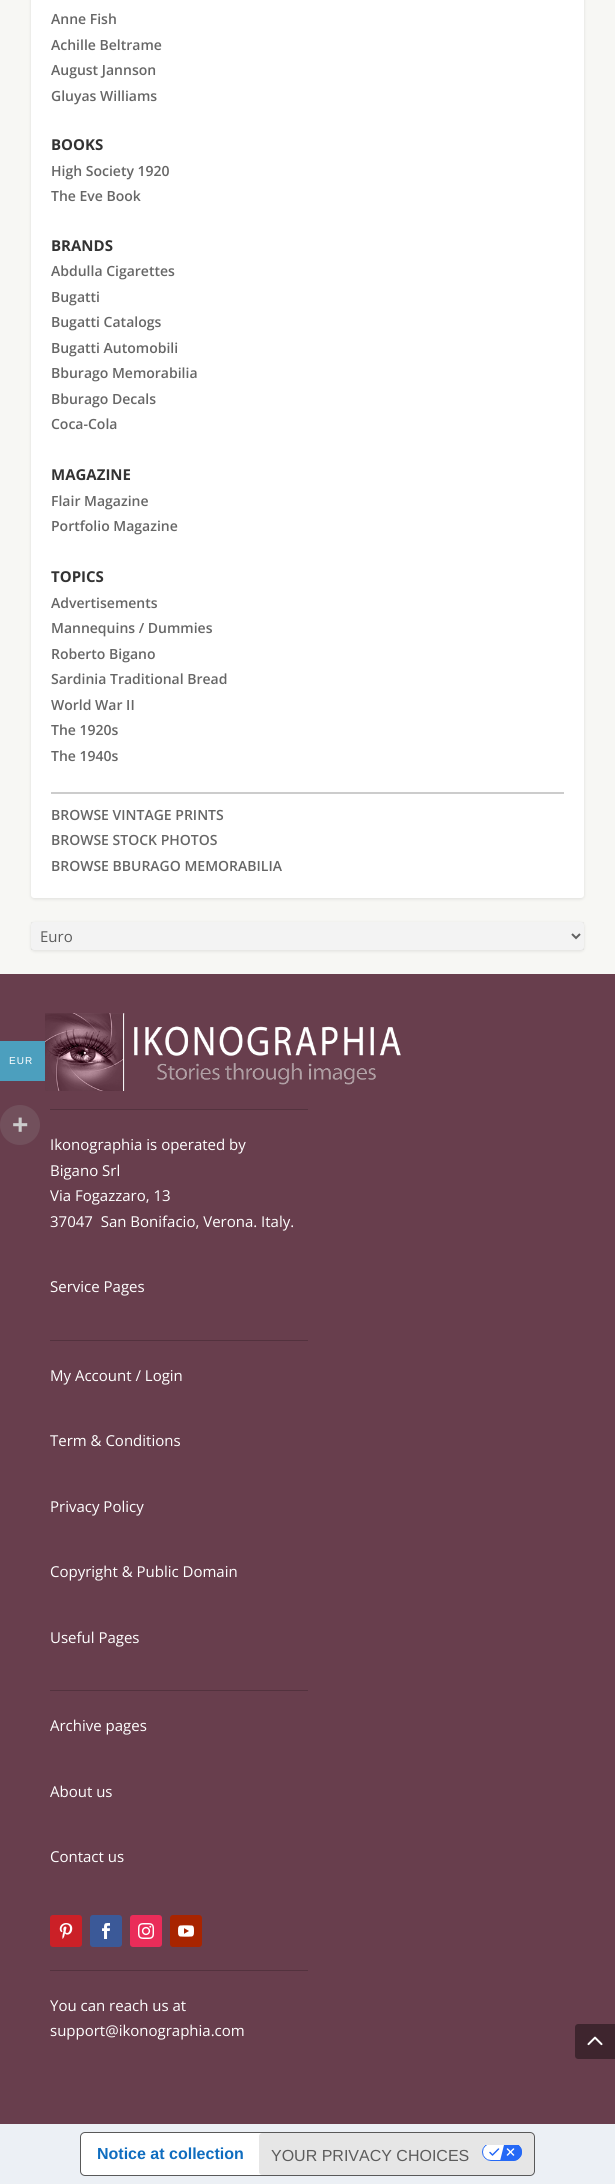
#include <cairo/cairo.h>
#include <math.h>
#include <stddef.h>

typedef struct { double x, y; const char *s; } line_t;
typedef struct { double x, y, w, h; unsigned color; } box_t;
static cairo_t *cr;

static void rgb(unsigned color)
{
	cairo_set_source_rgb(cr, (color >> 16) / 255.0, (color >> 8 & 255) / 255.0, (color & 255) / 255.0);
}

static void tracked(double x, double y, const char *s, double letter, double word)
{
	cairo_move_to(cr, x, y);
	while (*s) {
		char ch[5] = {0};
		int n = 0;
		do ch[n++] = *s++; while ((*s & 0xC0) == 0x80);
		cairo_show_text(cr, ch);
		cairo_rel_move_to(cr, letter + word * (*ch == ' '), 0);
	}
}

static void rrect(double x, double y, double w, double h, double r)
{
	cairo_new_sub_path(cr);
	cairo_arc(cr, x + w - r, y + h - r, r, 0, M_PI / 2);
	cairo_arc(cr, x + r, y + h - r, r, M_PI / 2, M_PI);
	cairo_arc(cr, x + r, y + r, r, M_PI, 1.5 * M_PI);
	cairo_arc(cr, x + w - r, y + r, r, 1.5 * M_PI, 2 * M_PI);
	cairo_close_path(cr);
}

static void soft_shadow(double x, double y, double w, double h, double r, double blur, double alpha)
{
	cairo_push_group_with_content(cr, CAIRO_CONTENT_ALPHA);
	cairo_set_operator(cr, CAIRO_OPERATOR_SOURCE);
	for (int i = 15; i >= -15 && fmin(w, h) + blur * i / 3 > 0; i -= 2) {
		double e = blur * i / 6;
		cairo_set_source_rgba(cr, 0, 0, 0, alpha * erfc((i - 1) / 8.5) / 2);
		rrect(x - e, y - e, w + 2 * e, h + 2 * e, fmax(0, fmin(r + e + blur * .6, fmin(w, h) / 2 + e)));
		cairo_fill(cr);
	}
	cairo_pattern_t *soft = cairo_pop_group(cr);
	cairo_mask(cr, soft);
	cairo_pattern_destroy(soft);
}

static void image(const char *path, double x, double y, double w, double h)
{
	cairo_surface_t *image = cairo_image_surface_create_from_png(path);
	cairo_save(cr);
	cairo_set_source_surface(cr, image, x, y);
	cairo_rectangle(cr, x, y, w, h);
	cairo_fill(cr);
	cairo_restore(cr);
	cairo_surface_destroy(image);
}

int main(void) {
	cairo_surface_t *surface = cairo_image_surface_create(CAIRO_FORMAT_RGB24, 615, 2184);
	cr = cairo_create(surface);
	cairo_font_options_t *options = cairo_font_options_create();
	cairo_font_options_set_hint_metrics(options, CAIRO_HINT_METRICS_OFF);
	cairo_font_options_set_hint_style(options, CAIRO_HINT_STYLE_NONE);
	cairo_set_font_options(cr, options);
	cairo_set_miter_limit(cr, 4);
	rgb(0xecf0f5);
	cairo_paint(cr);
	rgb(0x683e4d);
	cairo_rectangle(cr, 0, 974, 615, 1150);
	cairo_fill(cr);
	rgb(0x4c9fbe);
	cairo_rectangle(cr, 0, 1041, 45, 40);
	cairo_fill(cr);
	rgb(0x72505c);
	cairo_arc(cr, 20, 1125, 20, 0, 2 * M_PI);
	cairo_fill(cr);
	rgb(0xf7f7f4);
	cairo_rectangle(cr, 0, 0, 615, 974);
	cairo_fill(cr);
	rgb(0x000000);
	soft_shadow(31, -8, 553, 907, 3, 1.5, 0.1);
	rgb(0xffffff);
	rrect(31, -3, 553, 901, 3);
	cairo_fill(cr);
	rgb(0xcccccc);
	cairo_rectangle(cr, 51, 792, 513, 2);
	cairo_fill(cr);
	rgb(0x000000);
	soft_shadow(31, 923, 553, 28, 3, 1.5, 0.1);
	rgb(0xffffff);
	rrect(31, 922, 553, 28, 3);
	cairo_fill(cr);
	cairo_set_source_rgba(cr, 0, 0, 0, 0.05);
	cairo_rectangle(cr, 31, 922, 553, 28);
	cairo_fill(cr);
	cairo_new_path(cr);
	cairo_move_to(cr, 572, 934);
	cairo_line_to(cr, 576, 938);
	cairo_line_to(cr, 580, 934);
	rgb(0x616161);
	cairo_stroke(cr);
	image("img/1.png", 45, 1013, 356, 78);
	{
		static const box_t items[] = {
			{50, 1109, 258, 1, 0x53323e},
			{50, 1340, 258, 1, 0x53323e},
			{50, 1690, 258, 1, 0x53323e},
		};
		for (size_t i = 0; i < sizeof items / sizeof *items; i++) {
			rgb(items[i].color);
			cairo_rectangle(cr, items[i].x, items[i].y, items[i].w, items[i].h);
			cairo_fill(cr);
		}
	}
	rgb(0xcb2027);
	rrect(50, 1915, 32, 32, 3);
	cairo_fill(cr);
	image("img/2.png", 59, 1923, 14, 16);
	rgb(0x3b5998);
	rrect(90, 1915, 32, 32, 3);
	cairo_fill(cr);
	image("img/3.png", 102, 1923, 8, 16);
	rgb(0xea2c59);
	rrect(130, 1915, 32, 32, 3);
	cairo_fill(cr);
	image("img/4.png", 138, 1923, 16, 16);
	rgb(0xa82400);
	rrect(170, 1915, 32, 32, 3);
	cairo_fill(cr);
	image("img/5.png", 178, 1925, 16, 12);
	rgb(0x53323e);
	cairo_rectangle(cr, 50, 1970, 258, 1);
	cairo_fill(cr);
	rgb(0x3e252e);
	cairo_new_path(cr);
	cairo_move_to(cr, 578, 2024);
	cairo_line_to(cr, 615, 2024);
	cairo_line_to(cr, 615, 2059);
	cairo_line_to(cr, 578, 2059);
	cairo_curve_to(cr, 576.5, 2059, 575, 2057.5, 575, 2056);
	cairo_line_to(cr, 575, 2027);
	cairo_curve_to(cr, 575, 2025.5, 576.5, 2024, 578, 2024);
	cairo_close_path(cr);
	cairo_fill(cr);
	image("img/6.png", 587, 2036, 16, 10);
	rgb(0xffffff);
	rrect(80.5, 2132.5, 454, 43, 4.5);
	cairo_fill_preserve(cr);
	rgb(0x595959);
	cairo_set_line_width(cr, 1);
	cairo_stroke(cr);
	cairo_set_source_rgba(cr, 0, 0, 0, 0.1);
	cairo_new_path(cr);
	cairo_move_to(cr, 262, 2133);
	cairo_line_to(cr, 530, 2133);
	cairo_curve_to(cr, 532, 2133, 534, 2135, 534, 2137);
	cairo_line_to(cr, 534, 2171);
	cairo_curve_to(cr, 534, 2173, 532, 2175, 530, 2175);
	cairo_line_to(cr, 262, 2175);
	cairo_curve_to(cr, 260.5, 2175, 259, 2173.5, 259, 2172);
	cairo_line_to(cr, 259, 2136);
	cairo_curve_to(cr, 259, 2134.5, 260.5, 2133, 262, 2133);
	cairo_close_path(cr);
	cairo_fill(cr);
	image("img/7.png", 482, 2145, 40, 16);
	cairo_select_font_face(cr, "Liberation Sans", CAIRO_FONT_SLANT_NORMAL, CAIRO_FONT_WEIGHT_NORMAL);
	cairo_set_font_size(cr, 10);
	rgb(0xffffff);
	tracked(9, 1064, "EUR", 1, 0);
	cairo_select_font_face(cr, "Liberation Sans", CAIRO_FONT_SLANT_NORMAL, CAIRO_FONT_WEIGHT_BOLD);
	cairo_set_font_size(cr, 28);
	rgb(0xcccccc);
	cairo_move_to(cr, 12, 1134);
	cairo_show_text(cr, "+");
	cairo_select_font_face(cr, "Open Sans SemiBold", CAIRO_FONT_SLANT_NORMAL, CAIRO_FONT_WEIGHT_NORMAL);
	cairo_set_font_size(cr, 14);
	rgb(0x666666);
	{
		static const line_t items[] = {
			{51, 24, "Anne Fish"},
			{51, 50, "Achille Beltrame"},
			{51, 75, "August Jannson"},
			{51, 101, "Gluyas Williams"},
		};
		for (size_t i = 0; i < sizeof items / sizeof *items; i++) {
			cairo_move_to(cr, items[i].x, items[i].y);
			cairo_show_text(cr, items[i].s);
		}
	}
	cairo_select_font_face(cr, "Open Sans", CAIRO_FONT_SLANT_NORMAL, CAIRO_FONT_WEIGHT_BOLD);
	cairo_set_font_size(cr, 15);
	rgb(0x333333);
	cairo_move_to(cr, 51, 150);
	cairo_show_text(cr, "BOOKS");
	cairo_select_font_face(cr, "Open Sans SemiBold", CAIRO_FONT_SLANT_NORMAL, CAIRO_FONT_WEIGHT_NORMAL);
	cairo_set_font_size(cr, 14);
	rgb(0x666666);
	cairo_move_to(cr, 51, 176);
	cairo_show_text(cr, "High Society 1920");
	cairo_move_to(cr, 51, 201);
	cairo_show_text(cr, "The Eve Book");
	cairo_select_font_face(cr, "Open Sans", CAIRO_FONT_SLANT_NORMAL, CAIRO_FONT_WEIGHT_BOLD);
	cairo_set_font_size(cr, 15);
	rgb(0x333333);
	cairo_move_to(cr, 51, 251);
	cairo_show_text(cr, "BRANDS");
	cairo_select_font_face(cr, "Open Sans SemiBold", CAIRO_FONT_SLANT_NORMAL, CAIRO_FONT_WEIGHT_NORMAL);
	cairo_set_font_size(cr, 14);
	rgb(0x666666);
	{
		static const line_t items[] = {
			{51, 276, "Abdulla Cigarettes"},
			{51, 302, "Bugatti"},
			{51, 327, "Bugatti Catalogs"},
			{51, 353, "Bugatti Automobili"},
			{51, 378, "Bburago Memorabilia"},
			{51, 404, "Bburago Decals"},
			{51, 429, "Coca-Cola"},
		};
		for (size_t i = 0; i < sizeof items / sizeof *items; i++) {
			cairo_move_to(cr, items[i].x, items[i].y);
			cairo_show_text(cr, items[i].s);
		}
	}
	cairo_select_font_face(cr, "Open Sans", CAIRO_FONT_SLANT_NORMAL, CAIRO_FONT_WEIGHT_BOLD);
	cairo_set_font_size(cr, 15);
	rgb(0x333333);
	cairo_move_to(cr, 51, 480);
	cairo_show_text(cr, "MAGAZINE");
	cairo_select_font_face(cr, "Open Sans SemiBold", CAIRO_FONT_SLANT_NORMAL, CAIRO_FONT_WEIGHT_NORMAL);
	cairo_set_font_size(cr, 14);
	rgb(0x666666);
	cairo_move_to(cr, 51, 506);
	cairo_show_text(cr, "Flair Magazine");
	cairo_move_to(cr, 51, 531);
	cairo_show_text(cr, "Portfolio Magazine");
	cairo_select_font_face(cr, "Open Sans", CAIRO_FONT_SLANT_NORMAL, CAIRO_FONT_WEIGHT_BOLD);
	cairo_set_font_size(cr, 15);
	rgb(0x333333);
	cairo_move_to(cr, 51, 582);
	cairo_show_text(cr, "TOPICS");
	cairo_select_font_face(cr, "Open Sans SemiBold", CAIRO_FONT_SLANT_NORMAL, CAIRO_FONT_WEIGHT_NORMAL);
	cairo_set_font_size(cr, 14);
	rgb(0x666666);
	{
		static const line_t items[] = {
			{51, 608, "Advertisements"},
			{51, 633, "Mannequins / Dummies"},
			{51, 659, "Roberto Bigano"},
			{51, 684, "Sardinia Traditional Bread"},
			{51, 710, "World War II"},
			{51, 735, "The 1920s"},
			{51, 761, "The 1940s"},
			{51, 820, "BROWSE VINTAGE PRINTS"},
			{51, 845, "BROWSE STOCK PHOTOS"},
			{51, 871, "BROWSE BBURAGO MEMORABILIA"},
		};
		for (size_t i = 0; i < sizeof items / sizeof *items; i++) {
			cairo_move_to(cr, items[i].x, items[i].y);
			cairo_show_text(cr, items[i].s);
		}
	}
	cairo_select_font_face(cr, "Open Sans", CAIRO_FONT_SLANT_NORMAL, CAIRO_FONT_WEIGHT_NORMAL);
	cairo_set_font_size(cr, 15);
	rgb(0x5c5c5c);
	cairo_move_to(cr, 40, 942);
	cairo_show_text(cr, "Euro");
	rgb(0xffffff);
	{
		static const line_t items[] = {
			{50, 1150, "Ikonographia is operated by"},
			{50, 1176, "Bigano Srl"},
			{50, 1201, "Via Fogazzaro, 13"},
			{50, 1227, "37047  San Bonifacio, Verona. Italy."},
			{50, 1292, "Service Pages"},
			{50, 1381, "My Account / Login"},
			{50, 1446, "Term & Conditions"},
			{50, 1512, "Privacy Policy"},
			{50, 1577, "Copyright & Public Domain"},
			{50, 1643, "Useful Pages"},
			{50, 1731, "Archive pages"},
			{50, 1797, "About us"},
			{50, 1862, "Contact us"},
			{50, 2011, "You can reach us at"},
			{50, 2036, "support@ikonographia.com"},
		};
		for (size_t i = 0; i < sizeof items / sizeof *items; i++) {
			cairo_move_to(cr, items[i].x, items[i].y);
			cairo_show_text(cr, items[i].s);
		}
	}
	cairo_select_font_face(cr, "Liberation Sans", CAIRO_FONT_SLANT_NORMAL, CAIRO_FONT_WEIGHT_BOLD);
	cairo_set_font_size(cr, 16);
	rgb(0x0f6dbf);
	cairo_move_to(cr, 97, 2159);
	cairo_show_text(cr, "Notice at collection");
	cairo_select_font_face(cr, "Liberation Sans", CAIRO_FONT_SLANT_NORMAL, CAIRO_FONT_WEIGHT_NORMAL);
	rgb(0x5c5c5c);
	cairo_move_to(cr, 271, 2161);
	cairo_show_text(cr, "YOUR PRIVACY CHOICES");
	cairo_surface_write_to_png(surface, "page.png");
	cairo_font_options_destroy(options);
	cairo_destroy(cr);
	cairo_surface_destroy(surface);
	return 0;
}
